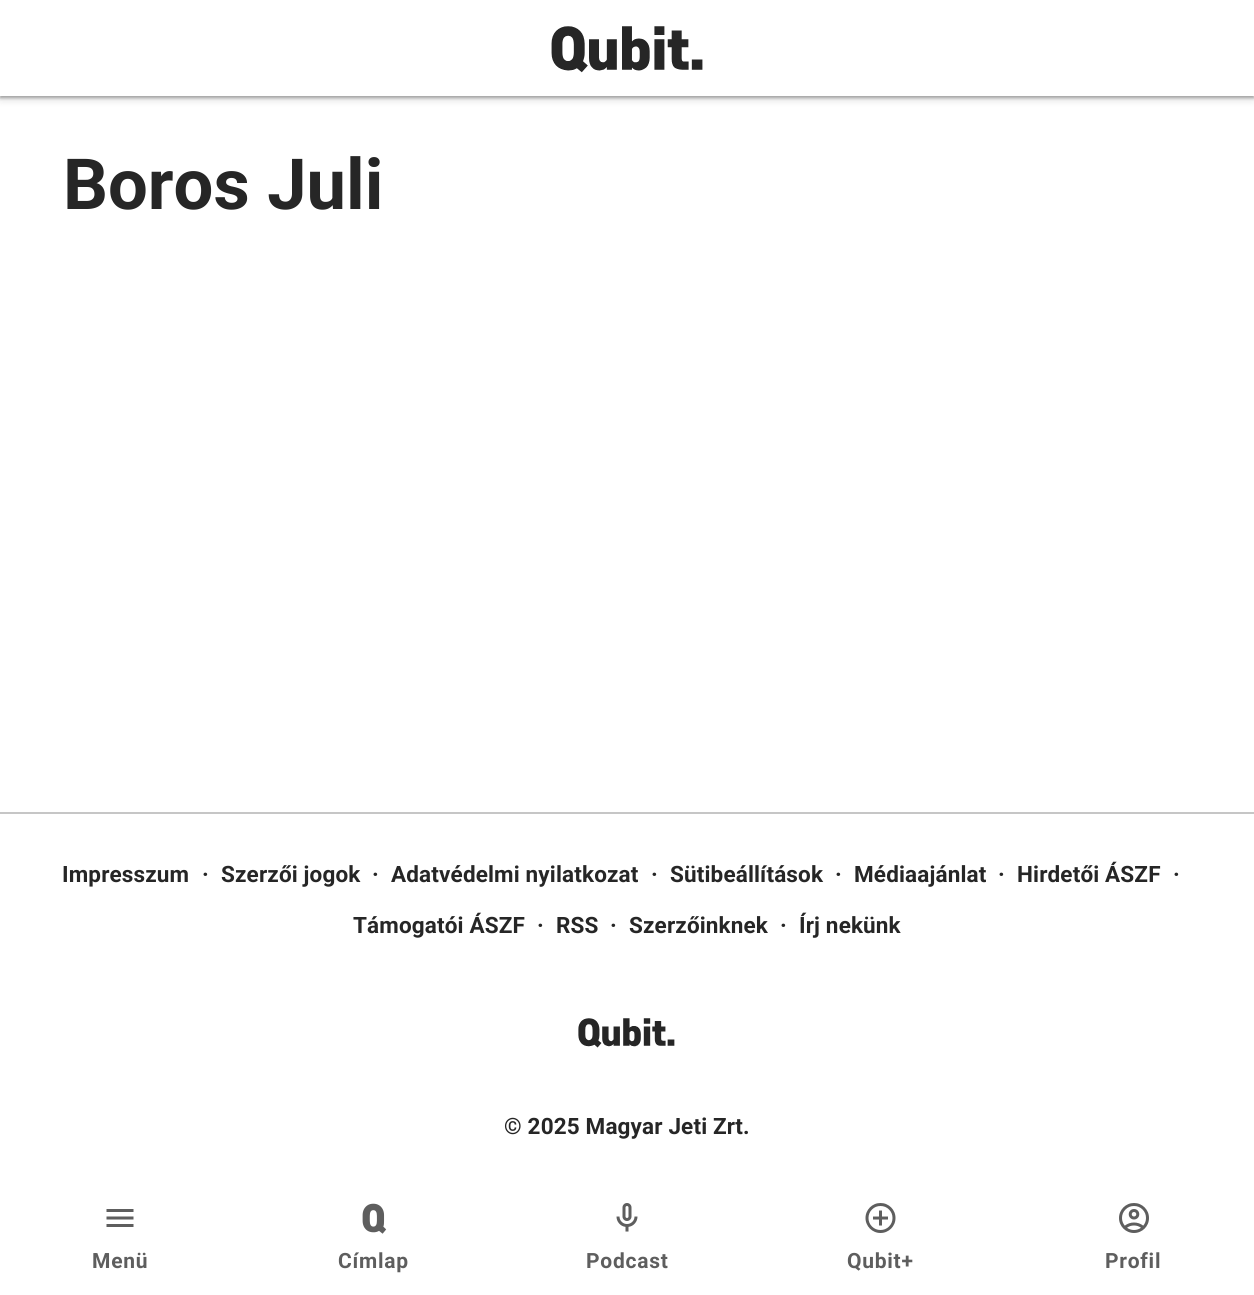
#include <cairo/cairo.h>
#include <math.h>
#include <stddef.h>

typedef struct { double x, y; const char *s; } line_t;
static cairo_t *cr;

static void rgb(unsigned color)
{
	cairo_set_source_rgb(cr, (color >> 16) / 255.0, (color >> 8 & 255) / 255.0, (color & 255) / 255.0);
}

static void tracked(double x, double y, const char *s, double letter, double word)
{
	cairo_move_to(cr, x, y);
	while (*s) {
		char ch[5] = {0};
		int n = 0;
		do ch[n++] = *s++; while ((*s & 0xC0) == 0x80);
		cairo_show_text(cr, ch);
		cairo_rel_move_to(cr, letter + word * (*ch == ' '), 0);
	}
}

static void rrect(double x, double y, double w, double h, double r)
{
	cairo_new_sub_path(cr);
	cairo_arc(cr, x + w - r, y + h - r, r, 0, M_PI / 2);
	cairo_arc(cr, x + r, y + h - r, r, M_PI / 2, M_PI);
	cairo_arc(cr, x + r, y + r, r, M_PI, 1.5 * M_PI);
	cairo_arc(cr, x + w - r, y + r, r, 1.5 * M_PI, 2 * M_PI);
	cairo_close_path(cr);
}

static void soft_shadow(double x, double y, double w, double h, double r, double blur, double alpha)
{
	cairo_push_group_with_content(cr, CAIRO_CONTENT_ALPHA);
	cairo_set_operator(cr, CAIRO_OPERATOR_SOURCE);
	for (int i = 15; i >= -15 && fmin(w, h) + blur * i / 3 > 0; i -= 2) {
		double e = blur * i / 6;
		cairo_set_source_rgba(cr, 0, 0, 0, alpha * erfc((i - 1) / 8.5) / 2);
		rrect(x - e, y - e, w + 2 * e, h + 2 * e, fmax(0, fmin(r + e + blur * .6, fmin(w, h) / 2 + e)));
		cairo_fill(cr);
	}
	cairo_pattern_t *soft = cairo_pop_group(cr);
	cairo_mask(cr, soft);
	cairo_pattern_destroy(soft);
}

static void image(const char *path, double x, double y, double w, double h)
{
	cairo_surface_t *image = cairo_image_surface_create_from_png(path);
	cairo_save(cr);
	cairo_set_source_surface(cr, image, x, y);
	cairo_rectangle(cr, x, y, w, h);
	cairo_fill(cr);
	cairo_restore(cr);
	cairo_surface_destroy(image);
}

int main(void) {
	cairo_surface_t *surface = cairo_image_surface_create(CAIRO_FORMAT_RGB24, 1254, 1295);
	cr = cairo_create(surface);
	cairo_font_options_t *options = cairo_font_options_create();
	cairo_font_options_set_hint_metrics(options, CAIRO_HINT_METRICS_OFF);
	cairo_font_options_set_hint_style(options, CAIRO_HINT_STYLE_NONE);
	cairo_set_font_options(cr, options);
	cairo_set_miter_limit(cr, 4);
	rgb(0xffffff);
	cairo_paint(cr);
	rgb(0x000000);
	soft_shadow(0, 2, 1254, 96, 0, 1.5, 0.3);
	soft_shadow(0, 3, 1254, 96, 0, 4.5, 0.15);
	rgb(0xffffff);
	cairo_rectangle(cr, 0, 0, 1254, 96);
	cairo_fill(cr);
	image("img/1.png", 551, 26, 152, 47);
	rgb(0xc6c6c6);
	cairo_rectangle(cr, 0, 812, 1254, 2);
	cairo_fill(cr);
	image("img/2.png", 578, 1018, 97, 30);
	image("img/3.png", 106, 1209, 28, 18);
	image("img/4.png", 362, 1203, 25, 31);
	image("img/5.png", 616, 1203, 22, 29);
	image("img/6.png", 865, 1203, 31, 30);
	image("img/7.png", 1119, 1203, 30, 30);
	cairo_select_font_face(cr, "Roboto", CAIRO_FONT_SLANT_NORMAL, CAIRO_FONT_WEIGHT_BOLD);
	cairo_set_font_size(cr, 70.5);
	rgb(0x262626);
	cairo_move_to(cr, 63, 209);
	cairo_show_text(cr, "Boros Juli");
	cairo_set_font_size(cr, 22.5);
	{
		static const line_t items[] = {
			{62, 882, "Impresszum"},
			{202, 882, "·"},
			{221, 882, "Szerzői jogok"},
			{372, 882, "·"},
			{391, 882, "Adatvédelmi nyilatkozat"},
			{651, 882, "·"},
			{670, 882, "Sütibeállítások"},
			{835, 882, "·"},
			{854, 882, "Médiaajánlat"},
			{998, 882, "·"},
			{1017, 882, "Hirdetői ÁSZF"},
			{1173, 882, "·"},
			{353, 933, "Támogatói ÁSZF"},
			{537, 933, "·"},
			{556, 933, "RSS"},
			{610, 933, "·"},
			{629, 933, "Szerzőinknek"},
			{780, 933, "·"},
			{799, 933, "Írj nekünk"},
			{504, 1134, "© 2025 Magyar Jeti Zrt."},
		};
		for (size_t i = 0; i < sizeof items / sizeof *items; i++) {
			tracked(items[i].x, items[i].y, items[i].s, 0.15, 0);
		}
	}
	cairo_set_font_size(cr, 21);
	rgb(0x5e5e5e);
	{
		static const line_t items[] = {
			{92, 1268, "Menü"},
			{338, 1268, "Címlap"},
			{586, 1268, "Podcast"},
			{847, 1268, "Qubit+"},
			{1105, 1268, "Profil"},
		};
		for (size_t i = 0; i < sizeof items / sizeof *items; i++) {
			tracked(items[i].x, items[i].y, items[i].s, 0.75, 0);
		}
	}
	cairo_surface_write_to_png(surface, "page.png");
	cairo_font_options_destroy(options);
	cairo_destroy(cr);
	cairo_surface_destroy(surface);
	return 0;
}
